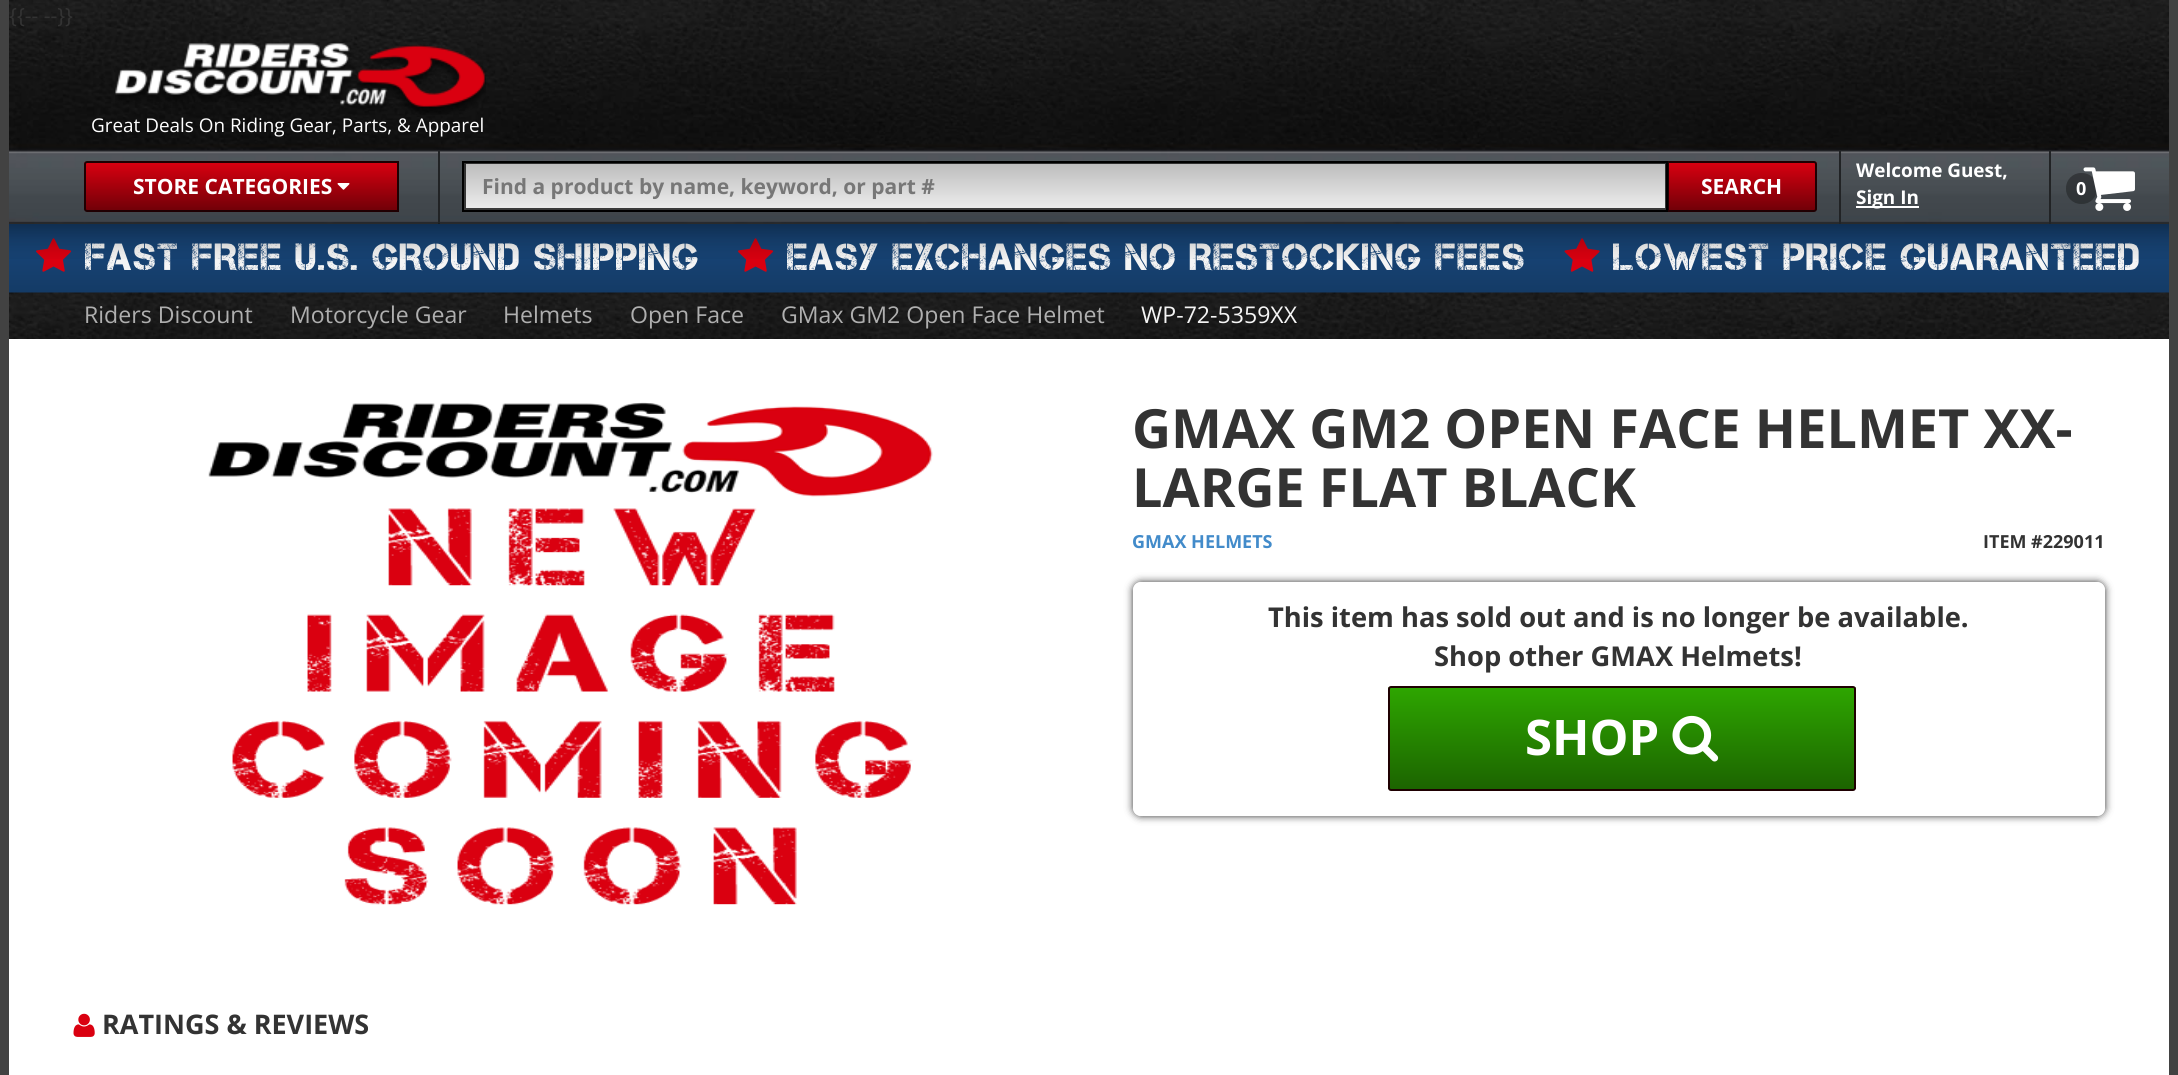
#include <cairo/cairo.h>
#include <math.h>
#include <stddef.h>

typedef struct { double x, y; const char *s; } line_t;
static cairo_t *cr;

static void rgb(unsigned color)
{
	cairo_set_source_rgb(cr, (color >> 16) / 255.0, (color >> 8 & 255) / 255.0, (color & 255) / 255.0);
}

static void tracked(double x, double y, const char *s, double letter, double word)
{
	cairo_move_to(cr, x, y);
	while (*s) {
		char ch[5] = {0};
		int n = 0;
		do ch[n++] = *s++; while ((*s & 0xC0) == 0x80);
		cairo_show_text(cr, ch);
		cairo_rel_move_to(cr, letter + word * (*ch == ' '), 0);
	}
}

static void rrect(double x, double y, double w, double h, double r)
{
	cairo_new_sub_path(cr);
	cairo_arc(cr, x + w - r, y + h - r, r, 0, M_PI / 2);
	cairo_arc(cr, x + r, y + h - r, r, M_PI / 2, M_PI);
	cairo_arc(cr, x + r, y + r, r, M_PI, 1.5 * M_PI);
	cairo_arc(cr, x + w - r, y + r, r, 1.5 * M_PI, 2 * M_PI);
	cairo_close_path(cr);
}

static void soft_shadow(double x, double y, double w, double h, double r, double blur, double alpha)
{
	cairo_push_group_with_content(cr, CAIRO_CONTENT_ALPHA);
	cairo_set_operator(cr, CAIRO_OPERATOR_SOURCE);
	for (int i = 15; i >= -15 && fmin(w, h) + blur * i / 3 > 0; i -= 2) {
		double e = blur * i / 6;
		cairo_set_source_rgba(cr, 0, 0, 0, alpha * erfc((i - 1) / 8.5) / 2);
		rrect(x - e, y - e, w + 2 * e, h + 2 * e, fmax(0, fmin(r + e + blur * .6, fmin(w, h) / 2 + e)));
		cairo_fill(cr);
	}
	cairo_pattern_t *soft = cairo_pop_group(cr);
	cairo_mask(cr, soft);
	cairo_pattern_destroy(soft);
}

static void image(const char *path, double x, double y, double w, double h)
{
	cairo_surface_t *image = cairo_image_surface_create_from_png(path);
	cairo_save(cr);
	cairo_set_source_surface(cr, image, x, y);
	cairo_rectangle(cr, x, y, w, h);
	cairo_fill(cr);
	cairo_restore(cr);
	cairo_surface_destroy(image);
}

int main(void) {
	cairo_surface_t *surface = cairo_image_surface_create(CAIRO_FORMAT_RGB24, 2178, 1075);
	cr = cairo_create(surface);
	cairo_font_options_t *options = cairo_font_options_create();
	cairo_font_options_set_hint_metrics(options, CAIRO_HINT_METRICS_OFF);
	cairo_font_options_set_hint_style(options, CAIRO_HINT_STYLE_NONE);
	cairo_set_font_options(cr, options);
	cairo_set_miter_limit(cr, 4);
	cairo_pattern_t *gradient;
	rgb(0x424242);
	cairo_paint(cr);
	image("img/1.png", 9, 0, 2160, 224);
	image("img/2.png", 115, 43, 371, 72);
	cairo_save(cr);
	cairo_new_path(cr);
	cairo_move_to(cr, 87, 161);
	cairo_line_to(cr, 399, 161);
	cairo_line_to(cr, 399, 212);
	cairo_line_to(cr, 87, 212);
	cairo_curve_to(cr, 85.5, 212, 84, 210.5, 84, 209);
	cairo_line_to(cr, 84, 164);
	cairo_curve_to(cr, 84, 162.5, 85.5, 161, 87, 161);
	cairo_close_path(cr);
	cairo_clip(cr);
	gradient = cairo_pattern_create_linear(242, 162, 242, 210);
	cairo_pattern_add_color_stop_rgba(gradient, 0, 0.855, 0, 0.063, 1);
	cairo_pattern_add_color_stop_rgba(gradient, 1, 0.447, 0, 0.031, 1);
	cairo_set_source(cr, gradient);
	cairo_pattern_destroy(gradient);
	cairo_rectangle(cr, 84, 162, 313, 48);
	cairo_fill(cr);
	cairo_restore(cr);
	cairo_new_path(cr);
	cairo_move_to(cr, 87, 162);
	cairo_line_to(cr, 398, 162);
	cairo_line_to(cr, 398, 211);
	cairo_line_to(cr, 87, 211);
	cairo_curve_to(cr, 86, 211, 85, 210, 85, 209);
	cairo_line_to(cr, 85, 164);
	cairo_curve_to(cr, 85, 163, 86, 162, 87, 162);
	cairo_close_path(cr);
	rgb(0x1f0002);
	cairo_stroke(cr);
	image("img/3.png", 337, 183, 13, 7);
	rgb(0x212325);
	cairo_rectangle(cr, 438, 150, 2, 74);
	cairo_fill(cr);
	gradient = cairo_pattern_create_linear(1065, 162, 1065, 210);
	cairo_pattern_add_color_stop_rgba(gradient, 0, 0.733, 0.733, 0.733, 1);
	cairo_pattern_add_color_stop_rgba(gradient, 1, 0.933, 0.933, 0.933, 1);
	cairo_set_source(cr, gradient);
	cairo_pattern_destroy(gradient);
	cairo_rectangle(cr, 464, 163, 1202, 47);
	cairo_fill(cr);
	cairo_rectangle(cr, 465, 163, 1201, 46);
	cairo_set_source_rgba(cr, 0, 0, 0, 0.75);
	cairo_stroke(cr);
	cairo_save(cr);
	cairo_new_path(cr);
	cairo_move_to(cr, 1667, 161);
	cairo_line_to(cr, 1814, 161);
	cairo_curve_to(cr, 1815.5, 161, 1817, 162.5, 1817, 164);
	cairo_line_to(cr, 1817, 209);
	cairo_curve_to(cr, 1817, 210.5, 1815.5, 212, 1814, 212);
	cairo_line_to(cr, 1667, 212);
	cairo_close_path(cr);
	cairo_clip(cr);
	gradient = cairo_pattern_create_linear(1742, 162, 1742, 210);
	cairo_pattern_add_color_stop_rgba(gradient, 0, 0.855, 0, 0.063, 1);
	cairo_pattern_add_color_stop_rgba(gradient, 1, 0.447, 0, 0.031, 1);
	cairo_set_source(cr, gradient);
	cairo_pattern_destroy(gradient);
	cairo_rectangle(cr, 1669, 162, 148, 48);
	cairo_fill(cr);
	cairo_restore(cr);
	cairo_new_path(cr);
	cairo_move_to(cr, 1668, 162);
	cairo_line_to(cr, 1814, 162);
	cairo_curve_to(cr, 1815, 162, 1816, 163, 1816, 164);
	cairo_line_to(cr, 1816, 209);
	cairo_curve_to(cr, 1816, 210, 1815, 211, 1814, 211);
	cairo_line_to(cr, 1668, 211);
	cairo_close_path(cr);
	rgb(0x1f0002);
	cairo_stroke(cr);
	cairo_rectangle(cr, 463, 162, 1204, 49);
	rgb(0x000000);
	cairo_stroke(cr);
	rgb(0xffffff);
	cairo_rectangle(cr, 1856, 206, 63, 2);
	cairo_fill(cr);
	gradient = cairo_pattern_create_linear(2081, 173, 2081, 204);
	cairo_pattern_add_color_stop_rgba(gradient, 0, 0.204, 0.216, 0.231, 1);
	cairo_pattern_add_color_stop_rgba(gradient, 1, 0.18, 0.2, 0.208, 1);
	cairo_set_source(cr, gradient);
	cairo_pattern_destroy(gradient);
	rrect(2066, 173, 31, 31, 15);
	cairo_fill(cr);
	gradient = cairo_pattern_create_linear(1089, 223, 1089, 293);
	cairo_pattern_add_color_stop_rgba(gradient, 0, 0.098, 0.286, 0.498, 1);
	cairo_pattern_add_color_stop_rgba(gradient, 1, 0.078, 0.231, 0.4, 1);
	cairo_set_source(cr, gradient);
	cairo_pattern_destroy(gradient);
	cairo_rectangle(cr, 9, 224, 2160, 69);
	cairo_fill(cr);
	image("img/6.png", 36, 238, 36, 34);
	image("img/6.png", 738, 238, 36, 34);
	image("img/7.png", 1564, 238, 36, 34);
	image("img/8.png", 9, 292, 2160, 47);
	rgb(0xffffff);
	cairo_rectangle(cr, 9, 339, 2160, 736);
	cairo_fill(cr);
	cairo_save(cr);
	cairo_set_fill_rule(cr, CAIRO_FILL_RULE_EVEN_ODD);
	cairo_new_path(cr);
	cairo_move_to(cr, 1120, 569);
	cairo_line_to(cr, 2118, 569);
	cairo_line_to(cr, 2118, 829);
	cairo_line_to(cr, 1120, 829);
	cairo_close_path(cr);
	cairo_move_to(cr, 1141, 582);
	cairo_line_to(cr, 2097, 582);
	cairo_curve_to(cr, 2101.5, 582, 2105, 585.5, 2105, 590);
	cairo_line_to(cr, 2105, 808);
	cairo_curve_to(cr, 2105, 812.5, 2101.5, 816, 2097, 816);
	cairo_line_to(cr, 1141, 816);
	cairo_curve_to(cr, 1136.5, 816, 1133, 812.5, 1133, 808);
	cairo_line_to(cr, 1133, 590);
	cairo_curve_to(cr, 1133, 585.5, 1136.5, 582, 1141, 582);
	cairo_close_path(cr);
	cairo_clip(cr);
	rgb(0x333333);
	soft_shadow(1133, 582, 972, 234, 8, 4, 1);
	cairo_restore(cr);
	cairo_save(cr);
	rrect(1388, 686, 468, 105, 3);
	cairo_clip(cr);
	gradient = cairo_pattern_create_linear(1622, 687, 1622, 789);
	cairo_pattern_add_color_stop_rgba(gradient, 0, 0.18, 0.651, 0, 1);
	cairo_pattern_add_color_stop_rgba(gradient, 1, 0.11, 0.392, 0, 1);
	cairo_set_source(cr, gradient);
	cairo_pattern_destroy(gradient);
	cairo_rectangle(cr, 1388, 687, 468, 102);
	cairo_fill(cr);
	cairo_restore(cr);
	rrect(1389, 687, 466, 103, 2);
	rgb(0x1f0002);
	cairo_stroke(cr);
	image("img/9.png", 1672, 715, 47, 47);
	image("img/10.png", 208, 402, 725, 503);
	image("img/11.png", 73, 1013, 22, 24);
	cairo_select_font_face(cr, "Open Sans", CAIRO_FONT_SLANT_NORMAL, CAIRO_FONT_WEIGHT_NORMAL);
	cairo_set_font_size(cr, 21);
	rgb(0x333333);
	cairo_move_to(cr, 9, 23);
	cairo_show_text(cr, "{{-- --}}");
	cairo_set_font_size(cr, 18.9);
	rgb(0xffffff);
	cairo_move_to(cr, 91, 132);
	cairo_show_text(cr, "Great Deals On Riding Gear, Parts, & Apparel");
	cairo_select_font_face(cr, "Open Sans", CAIRO_FONT_SLANT_NORMAL, CAIRO_FONT_WEIGHT_BOLD);
	cairo_set_font_size(cr, 21);
	cairo_move_to(cr, 133, 194);
	cairo_show_text(cr, "STORE CATEGORIES");
	rgb(0x777777);
	cairo_move_to(cr, 482, 194);
	cairo_show_text(cr, "Find a product by name, keyword, or part #");
	rgb(0xffffff);
	cairo_move_to(cr, 1701, 194);
	cairo_show_text(cr, "SEARCH");
	cairo_set_font_size(cr, 18.9);
	cairo_move_to(cr, 1856, 177);
	cairo_show_text(cr, "Welcome Guest,");
	cairo_move_to(cr, 1856, 204);
	cairo_show_text(cr, "Sign In");
	cairo_set_font_size(cr, 18);
	cairo_move_to(cr, 2076, 195);
	cairo_show_text(cr, "0");
	image("img/4.png", 2083, 167, 52, 44);
	cairo_select_font_face(cr, "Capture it", CAIRO_FONT_SLANT_NORMAL, CAIRO_FONT_WEIGHT_NORMAL);
	cairo_set_font_size(cr, 37.75);
	rgb(0xf5f5f5);
	{
		static const line_t items[] = {
			{85, 270, "FAST FREE U.S. GROUND SHIPPING"},
			{787, 270, "EASY EXCHANGES NO RESTOCKING FEES"},
			{1613, 270, "LOWEST PRICE GUARANTEED"},
		};
		for (size_t i = 0; i < sizeof items / sizeof *items; i++) {
			tracked(items[i].x, items[i].y, items[i].s, 1.5, 0);
		}
	}
	image("img/5.png", 9, 223, 2160, 36);
	rgb(0x212325);
	cairo_rectangle(cr, 2049, 150, 2, 74);
	cairo_fill(cr);
	cairo_rectangle(cr, 1839, 150, 2, 74);
	cairo_fill(cr);
	cairo_select_font_face(cr, "Open Sans", CAIRO_FONT_SLANT_NORMAL, CAIRO_FONT_WEIGHT_NORMAL);
	cairo_set_font_size(cr, 23.1);
	rgb(0xafafaf);
	{
		static const line_t items[] = {
			{84, 323, "Riders Discount"},
			{290, 323, "Motorcycle Gear"},
			{503, 323, "Helmets"},
			{630, 323, "Open Face"},
			{781, 323, "GMax GM2 Open Face Helmet"},
		};
		for (size_t i = 0; i < sizeof items / sizeof *items; i++) {
			cairo_move_to(cr, items[i].x, items[i].y);
			cairo_show_text(cr, items[i].s);
		}
	}
	rgb(0xf5f5f5);
	cairo_move_to(cr, 1141, 323);
	cairo_show_text(cr, "WP-72-5359XX");
	cairo_select_font_face(cr, "Open Sans", CAIRO_FONT_SLANT_NORMAL, CAIRO_FONT_WEIGHT_BOLD);
	cairo_set_font_size(cr, 54);
	rgb(0x333333);
	cairo_move_to(cr, 1132, 448);
	cairo_show_text(cr, "GMAX GM2 OPEN FACE HELMET XX-");
	cairo_move_to(cr, 1132, 507);
	cairo_show_text(cr, "LARGE FLAT BLACK");
	cairo_set_font_size(cr, 18);
	rgb(0x428bca);
	cairo_move_to(cr, 1132, 548);
	cairo_show_text(cr, "GMAX HELMETS");
	rgb(0x333333);
	cairo_move_to(cr, 1983, 548);
	cairo_show_text(cr, "ITEM #229011");
	cairo_set_font_size(cr, 27.3);
	cairo_move_to(cr, 1268, 627);
	cairo_show_text(cr, "This item has sold out and is no longer be available.");
	cairo_move_to(cr, 1434, 666);
	cairo_show_text(cr, "Shop other GMAX Helmets!");
	cairo_set_font_size(cr, 49);
	rgb(0xffffff);
	cairo_move_to(cr, 1525, 755);
	cairo_show_text(cr, "SHOP");
	cairo_set_font_size(cr, 27);
	rgb(0x333333);
	cairo_move_to(cr, 102, 1034);
	cairo_show_text(cr, "RATINGS & REVIEWS");
	cairo_surface_write_to_png(surface, "page.png");
	cairo_font_options_destroy(options);
	cairo_destroy(cr);
	cairo_surface_destroy(surface);
	return 0;
}
